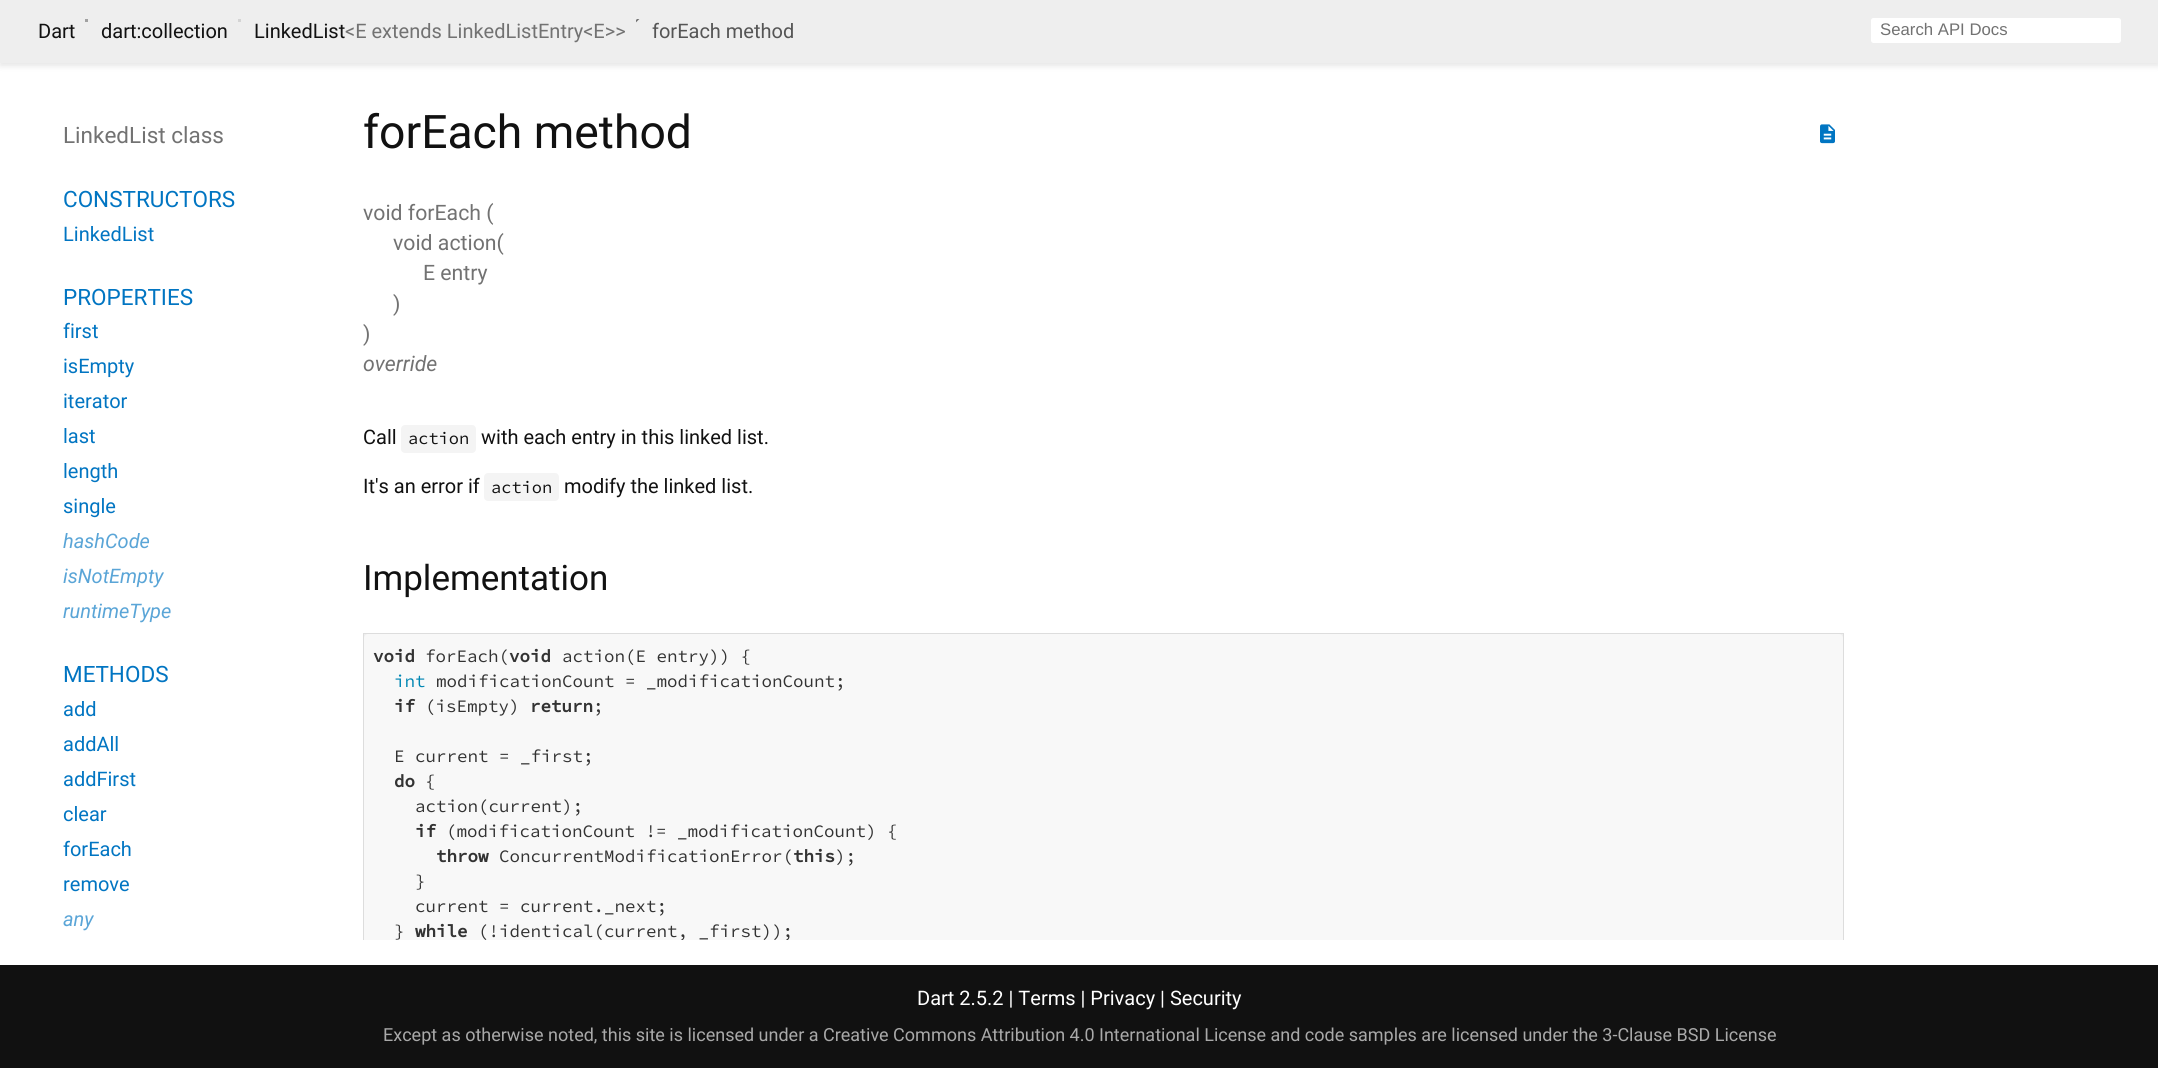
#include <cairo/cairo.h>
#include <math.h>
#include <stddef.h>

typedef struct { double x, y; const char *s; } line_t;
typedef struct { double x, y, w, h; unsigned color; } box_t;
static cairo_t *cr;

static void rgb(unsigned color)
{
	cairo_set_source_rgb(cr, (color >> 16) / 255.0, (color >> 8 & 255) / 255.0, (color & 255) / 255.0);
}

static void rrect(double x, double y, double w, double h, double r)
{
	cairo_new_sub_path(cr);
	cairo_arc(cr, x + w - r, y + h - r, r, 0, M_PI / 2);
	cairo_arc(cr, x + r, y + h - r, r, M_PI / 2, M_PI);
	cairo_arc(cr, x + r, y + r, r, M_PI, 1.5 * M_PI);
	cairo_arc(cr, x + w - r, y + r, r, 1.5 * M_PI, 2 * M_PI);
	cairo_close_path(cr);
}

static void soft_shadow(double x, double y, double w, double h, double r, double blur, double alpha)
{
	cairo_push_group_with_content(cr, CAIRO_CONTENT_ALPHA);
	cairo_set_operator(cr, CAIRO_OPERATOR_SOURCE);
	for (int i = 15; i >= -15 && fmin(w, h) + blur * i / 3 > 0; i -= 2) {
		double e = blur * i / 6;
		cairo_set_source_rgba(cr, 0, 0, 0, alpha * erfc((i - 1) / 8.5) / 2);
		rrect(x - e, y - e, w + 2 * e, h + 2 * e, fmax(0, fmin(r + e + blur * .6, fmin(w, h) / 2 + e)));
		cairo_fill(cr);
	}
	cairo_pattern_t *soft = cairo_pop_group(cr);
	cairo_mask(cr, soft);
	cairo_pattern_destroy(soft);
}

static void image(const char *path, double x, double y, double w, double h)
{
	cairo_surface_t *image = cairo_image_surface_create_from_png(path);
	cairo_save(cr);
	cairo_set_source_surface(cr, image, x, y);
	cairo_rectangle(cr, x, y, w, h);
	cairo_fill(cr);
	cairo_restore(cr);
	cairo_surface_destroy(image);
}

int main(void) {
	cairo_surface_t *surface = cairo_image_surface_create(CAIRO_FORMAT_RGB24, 2158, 1068);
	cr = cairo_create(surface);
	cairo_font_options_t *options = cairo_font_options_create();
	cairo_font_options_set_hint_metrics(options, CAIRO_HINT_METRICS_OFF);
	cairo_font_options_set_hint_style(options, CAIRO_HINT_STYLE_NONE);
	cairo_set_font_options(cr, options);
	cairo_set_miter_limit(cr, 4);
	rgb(0xffffff);
	cairo_paint(cr);
	rgb(0x000000);
	soft_shadow(0, 4, 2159, 62, 0, 3, 0.1);
	{
		static const box_t items[] = {
			{0, 0, 2158, 63, 0xeeeeee},
			{85, 19, 3, 3, 0xa1a1a1},
			{238, 19, 3, 3, 0xd4d4d4},
		};
		for (size_t i = 0; i < sizeof items / sizeof *items; i++) {
			rgb(items[i].color);
			cairo_rectangle(cr, items[i].x, items[i].y, items[i].w, items[i].h);
			cairo_fill(cr);
		}
	}
	image("img/1.png", 636, 19, 4, 4);
	rgb(0xffffff);
	rrect(1871, 18, 250, 25, 2.5);
	cairo_fill(cr);
	image("img/2.png", 1820, 124, 15, 20);
	rgb(0xf4f4f4);
	rrect(401, 425, 75, 28, 4);
	cairo_fill(cr);
	rrect(484, 473, 75, 28, 4);
	cairo_fill(cr);
	rgb(0xeeeeee);
	cairo_rectangle(cr, 364, 634, 1479, 4);
	cairo_fill(cr);
	rgb(0x111111);
	cairo_rectangle(cr, 0, 965, 2158, 103);
	cairo_fill(cr);
	cairo_save(cr);
	cairo_rectangle(cr, 338, 88, 1531, 852);
	cairo_clip(cr);
	cairo_rectangle(cr, 363.5, 633.5, 1480, 344);
	rgb(0xdddddd);
	cairo_set_line_width(cr, 1);
	cairo_stroke(cr);
	cairo_restore(cr);
	rgb(0xf8f8f8);
	cairo_new_path(cr);
	cairo_move_to(cr, 368, 634);
	cairo_line_to(cr, 1839, 634);
	cairo_curve_to(cr, 1841, 634, 1843, 636, 1843, 638);
	cairo_line_to(cr, 1843, 940);
	cairo_line_to(cr, 364, 940);
	cairo_line_to(cr, 364, 638);
	cairo_curve_to(cr, 364, 636, 366, 634, 368, 634);
	cairo_close_path(cr);
	cairo_fill(cr);
	cairo_select_font_face(cr, "Roboto", CAIRO_FONT_SLANT_NORMAL, CAIRO_FONT_WEIGHT_NORMAL);
	cairo_set_font_size(cr, 20);
	rgb(0x111111);
	{
		static const line_t items[] = {
			{38, 38, "Dart"},
			{101, 38, "dart:collection"},
			{254, 38, "LinkedList"},
		};
		for (size_t i = 0; i < sizeof items / sizeof *items; i++) {
			cairo_move_to(cr, items[i].x, items[i].y);
			cairo_show_text(cr, items[i].s);
		}
	}
	rgb(0x727272);
	cairo_move_to(cr, 345, 38);
	cairo_show_text(cr, "<E extends LinkedListEntry<E>>");
	rgb(0x555555);
	cairo_move_to(cr, 652, 38);
	cairo_show_text(cr, "forEach method");
	cairo_select_font_face(cr, "Liberation Sans", CAIRO_FONT_SLANT_NORMAL, CAIRO_FONT_WEIGHT_NORMAL);
	cairo_set_font_size(cr, 16.75);
	rgb(0x727272);
	cairo_move_to(cr, 1880, 35);
	cairo_show_text(cr, "Search API Docs");
	cairo_select_font_face(cr, "Roboto", CAIRO_FONT_SLANT_NORMAL, CAIRO_FONT_WEIGHT_NORMAL);
	cairo_set_font_size(cr, 22.5);
	cairo_move_to(cr, 63, 143);
	cairo_show_text(cr, "LinkedList class");
	rgb(0x0175c2);
	cairo_move_to(cr, 63, 207);
	cairo_show_text(cr, "CONSTRUCTORS");
	cairo_set_font_size(cr, 20);
	cairo_move_to(cr, 63, 241);
	cairo_show_text(cr, "LinkedList");
	cairo_set_font_size(cr, 22.5);
	cairo_move_to(cr, 63, 305);
	cairo_show_text(cr, "PROPERTIES");
	cairo_set_font_size(cr, 20);
	{
		static const line_t items[] = {
			{63, 338, "first"},
			{63, 373, "isEmpty"},
			{63, 408, "iterator"},
			{63, 443, "last"},
			{63, 478, "length"},
			{63, 513, "single"},
		};
		for (size_t i = 0; i < sizeof items / sizeof *items; i++) {
			cairo_move_to(cr, items[i].x, items[i].y);
			cairo_show_text(cr, items[i].s);
		}
	}
	cairo_select_font_face(cr, "Roboto", CAIRO_FONT_SLANT_ITALIC, CAIRO_FONT_WEIGHT_NORMAL);
	rgb(0x5aa5d7);
	{
		static const line_t items[] = {
			{63, 548, "hashCode"},
			{63, 583, "isNotEmpty"},
			{63, 618, "runtimeType"},
		};
		for (size_t i = 0; i < sizeof items / sizeof *items; i++) {
			cairo_move_to(cr, items[i].x, items[i].y);
			cairo_show_text(cr, items[i].s);
		}
	}
	cairo_select_font_face(cr, "Roboto", CAIRO_FONT_SLANT_NORMAL, CAIRO_FONT_WEIGHT_NORMAL);
	cairo_set_font_size(cr, 22.5);
	rgb(0x0175c2);
	cairo_move_to(cr, 63, 682);
	cairo_show_text(cr, "METHODS");
	cairo_set_font_size(cr, 20);
	{
		static const line_t items[] = {
			{63, 716, "add"},
			{63, 751, "addAll"},
			{63, 786, "addFirst"},
			{63, 821, "clear"},
			{63, 856, "forEach"},
			{63, 891, "remove"},
		};
		for (size_t i = 0; i < sizeof items / sizeof *items; i++) {
			cairo_move_to(cr, items[i].x, items[i].y);
			cairo_show_text(cr, items[i].s);
		}
	}
	cairo_select_font_face(cr, "Roboto", CAIRO_FONT_SLANT_ITALIC, CAIRO_FONT_WEIGHT_NORMAL);
	rgb(0x5aa5d7);
	cairo_move_to(cr, 63, 926);
	cairo_show_text(cr, "any");
	cairo_select_font_face(cr, "Roboto", CAIRO_FONT_SLANT_NORMAL, CAIRO_FONT_WEIGHT_NORMAL);
	cairo_set_font_size(cr, 46.25);
	rgb(0x111111);
	cairo_move_to(cr, 363, 148);
	cairo_show_text(cr, "forEach method");
	cairo_set_font_size(cr, 21.25);
	rgb(0x727272);
	{
		static const line_t items[] = {
			{363, 220, "void forEach ("},
			{393, 250, "void action("},
			{423, 280, "E entry"},
			{393, 311, ")"},
			{363, 341, ")"},
		};
		for (size_t i = 0; i < sizeof items / sizeof *items; i++) {
			cairo_move_to(cr, items[i].x, items[i].y);
			cairo_show_text(cr, items[i].s);
		}
	}
	cairo_select_font_face(cr, "Roboto", CAIRO_FONT_SLANT_ITALIC, CAIRO_FONT_WEIGHT_NORMAL);
	cairo_move_to(cr, 363, 371);
	cairo_show_text(cr, "override");
	cairo_select_font_face(cr, "Roboto", CAIRO_FONT_SLANT_NORMAL, CAIRO_FONT_WEIGHT_NORMAL);
	cairo_set_font_size(cr, 20);
	rgb(0x111111);
	cairo_move_to(cr, 363, 444);
	cairo_show_text(cr, "Call");
	cairo_select_font_face(cr, "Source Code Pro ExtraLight", CAIRO_FONT_SLANT_NORMAL, CAIRO_FONT_WEIGHT_NORMAL);
	cairo_set_font_size(cr, 17);
	cairo_move_to(cr, 408, 444);
	cairo_show_text(cr, "action");
	cairo_select_font_face(cr, "Roboto", CAIRO_FONT_SLANT_NORMAL, CAIRO_FONT_WEIGHT_NORMAL);
	cairo_set_font_size(cr, 20);
	cairo_move_to(cr, 481, 444);
	cairo_show_text(cr, "with each entry in this linked list.");
	cairo_move_to(cr, 363, 493);
	cairo_show_text(cr, "It's an error if");
	cairo_select_font_face(cr, "Source Code Pro ExtraLight", CAIRO_FONT_SLANT_NORMAL, CAIRO_FONT_WEIGHT_NORMAL);
	cairo_set_font_size(cr, 17);
	cairo_move_to(cr, 491, 493);
	cairo_show_text(cr, "action");
	cairo_select_font_face(cr, "Roboto", CAIRO_FONT_SLANT_NORMAL, CAIRO_FONT_WEIGHT_NORMAL);
	cairo_set_font_size(cr, 20);
	cairo_move_to(cr, 564, 493);
	cairo_show_text(cr, "modify the linked list.");
	cairo_set_font_size(cr, 35);
	cairo_move_to(cr, 363, 590);
	cairo_show_text(cr, "Implementation");
	cairo_select_font_face(cr, "Source Code Pro ExtraLight", CAIRO_FONT_SLANT_NORMAL, CAIRO_FONT_WEIGHT_BOLD);
	cairo_set_font_size(cr, 17.5);
	rgb(0x333333);
	cairo_move_to(cr, 373, 662);
	cairo_show_text(cr, "void");
	cairo_select_font_face(cr, "Source Code Pro ExtraLight", CAIRO_FONT_SLANT_NORMAL, CAIRO_FONT_WEIGHT_NORMAL);
	cairo_move_to(cr, 425, 662);
	cairo_show_text(cr, "forEach(");
	cairo_select_font_face(cr, "Source Code Pro ExtraLight", CAIRO_FONT_SLANT_NORMAL, CAIRO_FONT_WEIGHT_BOLD);
	cairo_move_to(cr, 509, 662);
	cairo_show_text(cr, "void");
	cairo_select_font_face(cr, "Source Code Pro ExtraLight", CAIRO_FONT_SLANT_NORMAL, CAIRO_FONT_WEIGHT_NORMAL);
	cairo_move_to(cr, 562, 662);
	cairo_show_text(cr, "action(E entry)) {");
	rgb(0x0086b3);
	cairo_move_to(cr, 394, 687);
	cairo_show_text(cr, "int");
	rgb(0x333333);
	cairo_move_to(cr, 436, 687);
	cairo_show_text(cr, "modificationCount = _modificationCount;");
	cairo_select_font_face(cr, "Source Code Pro ExtraLight", CAIRO_FONT_SLANT_NORMAL, CAIRO_FONT_WEIGHT_BOLD);
	cairo_move_to(cr, 394, 712);
	cairo_show_text(cr, "if");
	cairo_select_font_face(cr, "Source Code Pro ExtraLight", CAIRO_FONT_SLANT_NORMAL, CAIRO_FONT_WEIGHT_NORMAL);
	cairo_move_to(cr, 425, 712);
	cairo_show_text(cr, "(isEmpty)");
	cairo_select_font_face(cr, "Source Code Pro ExtraLight", CAIRO_FONT_SLANT_NORMAL, CAIRO_FONT_WEIGHT_BOLD);
	cairo_move_to(cr, 530, 712);
	cairo_show_text(cr, "return");
	cairo_select_font_face(cr, "Source Code Pro ExtraLight", CAIRO_FONT_SLANT_NORMAL, CAIRO_FONT_WEIGHT_NORMAL);
	cairo_move_to(cr, 593, 712);
	cairo_show_text(cr, ";");
	cairo_move_to(cr, 394, 762);
	cairo_show_text(cr, "E current = _first;");
	cairo_select_font_face(cr, "Source Code Pro ExtraLight", CAIRO_FONT_SLANT_NORMAL, CAIRO_FONT_WEIGHT_BOLD);
	cairo_move_to(cr, 394, 787);
	cairo_show_text(cr, "do");
	cairo_select_font_face(cr, "Source Code Pro ExtraLight", CAIRO_FONT_SLANT_NORMAL, CAIRO_FONT_WEIGHT_NORMAL);
	cairo_move_to(cr, 425, 787);
	cairo_show_text(cr, "{");
	cairo_move_to(cr, 415, 812);
	cairo_show_text(cr, "action(current);");
	cairo_select_font_face(cr, "Source Code Pro ExtraLight", CAIRO_FONT_SLANT_NORMAL, CAIRO_FONT_WEIGHT_BOLD);
	cairo_move_to(cr, 415, 837);
	cairo_show_text(cr, "if");
	cairo_select_font_face(cr, "Source Code Pro ExtraLight", CAIRO_FONT_SLANT_NORMAL, CAIRO_FONT_WEIGHT_NORMAL);
	cairo_move_to(cr, 446, 837);
	cairo_show_text(cr, "(modificationCount != _modificationCount) {");
	cairo_select_font_face(cr, "Source Code Pro ExtraLight", CAIRO_FONT_SLANT_NORMAL, CAIRO_FONT_WEIGHT_BOLD);
	cairo_move_to(cr, 436, 862);
	cairo_show_text(cr, "throw");
	cairo_select_font_face(cr, "Source Code Pro ExtraLight", CAIRO_FONT_SLANT_NORMAL, CAIRO_FONT_WEIGHT_NORMAL);
	cairo_move_to(cr, 499, 862);
	cairo_show_text(cr, "ConcurrentModificationError(");
	cairo_select_font_face(cr, "Source Code Pro ExtraLight", CAIRO_FONT_SLANT_NORMAL, CAIRO_FONT_WEIGHT_BOLD);
	cairo_move_to(cr, 793, 862);
	cairo_show_text(cr, "this");
	cairo_select_font_face(cr, "Source Code Pro ExtraLight", CAIRO_FONT_SLANT_NORMAL, CAIRO_FONT_WEIGHT_NORMAL);
	{
		static const line_t items[] = {
			{835, 862, ");"},
			{415, 887, "}"},
			{415, 912, "current = current._next;"},
			{394, 937, "}"},
		};
		for (size_t i = 0; i < sizeof items / sizeof *items; i++) {
			cairo_move_to(cr, items[i].x, items[i].y);
			cairo_show_text(cr, items[i].s);
		}
	}
	cairo_select_font_face(cr, "Source Code Pro ExtraLight", CAIRO_FONT_SLANT_NORMAL, CAIRO_FONT_WEIGHT_BOLD);
	cairo_move_to(cr, 415, 937);
	cairo_show_text(cr, "while");
	cairo_save(cr);
	cairo_rectangle(cr, 338, 88, 1531, 852);
	cairo_clip(cr);
	cairo_select_font_face(cr, "Source Code Pro ExtraLight", CAIRO_FONT_SLANT_NORMAL, CAIRO_FONT_WEIGHT_NORMAL);
	cairo_move_to(cr, 478, 937);
	cairo_show_text(cr, "(!identical(current, _first));");
	cairo_restore(cr);
	cairo_select_font_face(cr, "Roboto", CAIRO_FONT_SLANT_NORMAL, CAIRO_FONT_WEIGHT_NORMAL);
	cairo_set_font_size(cr, 20);
	rgb(0xffffff);
	cairo_move_to(cr, 917, 1005);
	cairo_show_text(cr, "Dart 2.5.2 | Terms | Privacy | Security");
	cairo_set_font_size(cr, 18);
	rgb(0xa9a9a9);
	cairo_move_to(cr, 383, 1041);
	cairo_show_text(cr, "Except as otherwise noted, this site is licensed under a Creative Commons Attribution 4.0 International License and code samples are licensed under the 3-Clause BSD License");
	cairo_surface_write_to_png(surface, "page.png");
	cairo_font_options_destroy(options);
	cairo_destroy(cr);
	cairo_surface_destroy(surface);
	return 0;
}
